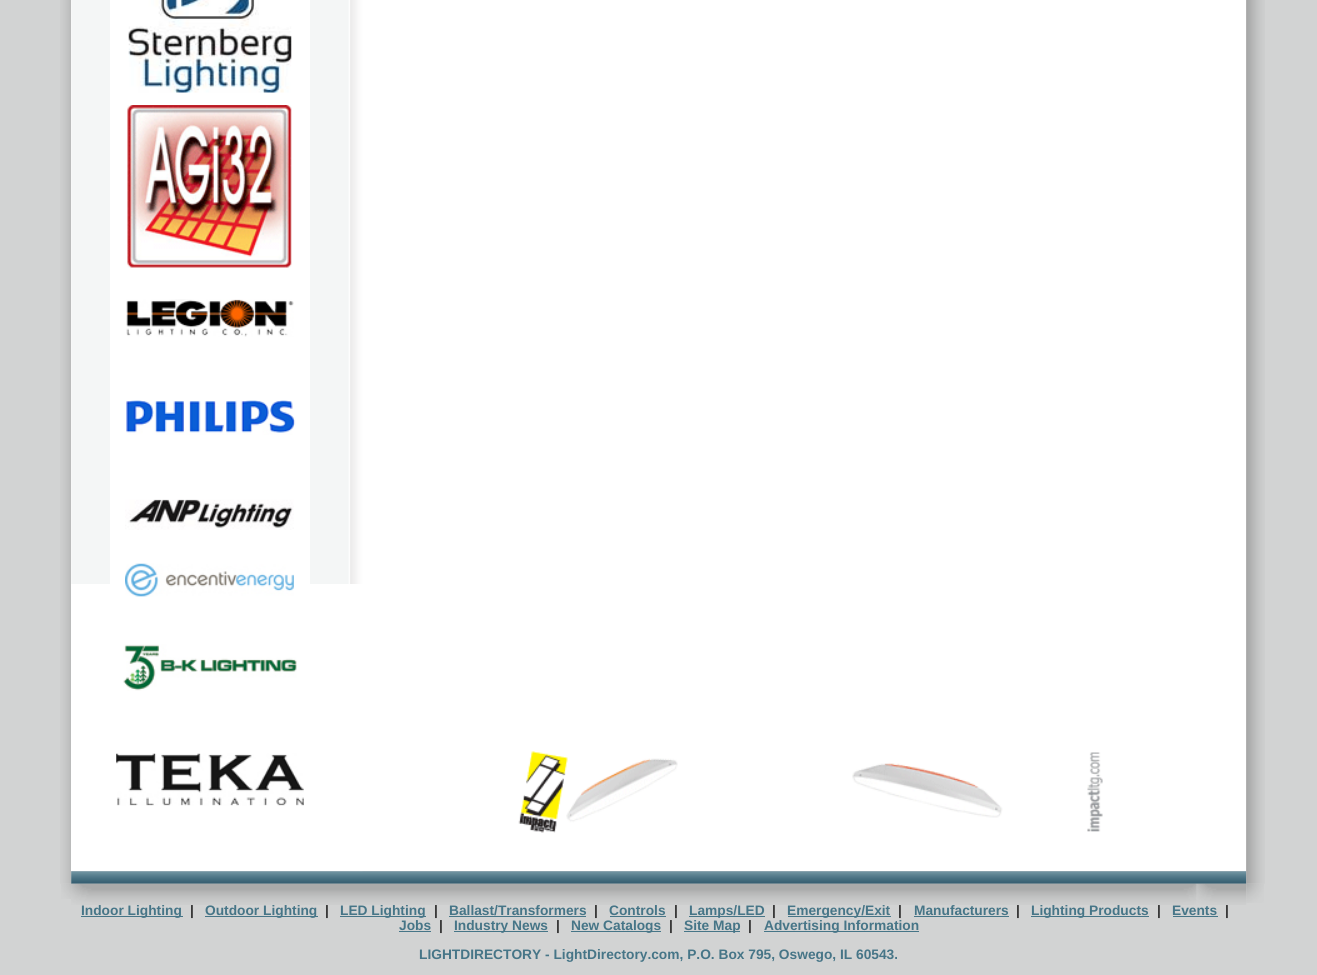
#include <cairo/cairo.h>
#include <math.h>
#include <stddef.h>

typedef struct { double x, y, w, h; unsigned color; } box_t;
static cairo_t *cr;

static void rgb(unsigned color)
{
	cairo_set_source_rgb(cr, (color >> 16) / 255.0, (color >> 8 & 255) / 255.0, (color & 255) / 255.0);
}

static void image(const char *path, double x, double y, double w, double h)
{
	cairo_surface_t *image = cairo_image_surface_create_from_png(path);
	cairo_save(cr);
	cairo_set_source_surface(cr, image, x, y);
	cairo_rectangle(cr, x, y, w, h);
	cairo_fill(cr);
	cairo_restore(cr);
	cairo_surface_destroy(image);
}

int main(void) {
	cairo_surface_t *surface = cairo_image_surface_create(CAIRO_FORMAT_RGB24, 1317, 975);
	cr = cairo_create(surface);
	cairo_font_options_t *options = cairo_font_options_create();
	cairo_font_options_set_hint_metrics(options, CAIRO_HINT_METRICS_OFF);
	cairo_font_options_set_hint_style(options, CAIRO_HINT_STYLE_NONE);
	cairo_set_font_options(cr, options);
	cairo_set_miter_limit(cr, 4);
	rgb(0xd2d3d3);
	cairo_paint(cr);
	image("img/1.png", 60, 0, 12, 884);
	rgb(0xffffff);
	cairo_rectangle(cr, 71, 0, 1175, 584);
	cairo_fill(cr);
	image("img/2.png", 71, 0, 292, 872);
	cairo_rectangle(cr, 110, 0, 200, 584);
	cairo_fill(cr);
	image("img/3.png", 128, 0, 164, 93);
	image("img/4.png", 127, 105, 165, 163);
	image("img/5.png", 126, 299, 168, 38);
	image("img/6.png", 126, 400, 170, 35);
	image("img/7.png", 125, 499, 169, 31);
	cairo_rectangle(cr, 71, 584, 1175, 287);
	cairo_fill(cr);
	image("img/8.png", 125, 563, 169, 34);
	image("img/9.png", 123, 644, 174, 47);
	image("img/10.png", 116, 753, 188, 53);
	image("img/11.png", 518, 751, 585, 82);
	image("img/12.png", 71, 871, 1176, 13);
	image("img/13.png", 1246, 0, 19, 884);
	image("img/14.png", 61, 884, 10, 15);
	image("img/16.png", 71, 883, 1176, 22);
	image("img/15.png", 1246, 884, 18, 19);
	{
		static const box_t items[] = {
			{81, 916, 102, 1, 0x467587},
			{205, 916, 113, 1, 0x467587},
			{340, 916, 86, 1, 0x467587},
			{449, 916, 137, 1, 0x467587},
			{610, 916, 56, 1, 0x467587},
			{689, 916, 76, 1, 0x467587},
			{788, 916, 103, 1, 0x467587},
			{914, 916, 95, 1, 0x467587},
			{1031, 916, 118, 1, 0x467587},
			{1173, 916, 45, 1, 0x467587},
			{399, 931, 32, 1, 0x467587},
			{454, 931, 94, 1, 0x467587},
			{571, 931, 90, 1, 0x467587},
			{684, 931, 56, 1, 0x467587},
			{764, 931, 155, 1, 0x467587},
		};
		for (size_t i = 0; i < sizeof items / sizeof *items; i++) {
			rgb(items[i].color);
			cairo_rectangle(cr, items[i].x, items[i].y, items[i].w, items[i].h);
			cairo_fill(cr);
		}
	}
	cairo_select_font_face(cr, "Liberation Sans", CAIRO_FONT_SLANT_NORMAL, CAIRO_FONT_WEIGHT_BOLD);
	cairo_set_font_size(cr, 13.75);
	cairo_move_to(cr, 81, 915);
	cairo_show_text(cr, "Indoor Lighting");
	rgb(0x333333);
	cairo_move_to(cr, 190, 915);
	cairo_show_text(cr, "|");
	rgb(0x467587);
	cairo_move_to(cr, 205, 915);
	cairo_show_text(cr, "Outdoor Lighting");
	rgb(0x333333);
	cairo_move_to(cr, 325, 915);
	cairo_show_text(cr, "|");
	rgb(0x467587);
	cairo_move_to(cr, 340, 915);
	cairo_show_text(cr, "LED Lighting");
	rgb(0x333333);
	cairo_move_to(cr, 434, 915);
	cairo_show_text(cr, "|");
	rgb(0x467587);
	cairo_move_to(cr, 449, 915);
	cairo_show_text(cr, "Ballast/Transformers");
	rgb(0x333333);
	cairo_move_to(cr, 594, 915);
	cairo_show_text(cr, "|");
	rgb(0x467587);
	cairo_move_to(cr, 609, 915);
	cairo_show_text(cr, "Controls");
	rgb(0x333333);
	cairo_move_to(cr, 674, 915);
	cairo_show_text(cr, "|");
	rgb(0x467587);
	cairo_move_to(cr, 689, 915);
	cairo_show_text(cr, "Lamps/LED");
	rgb(0x333333);
	cairo_move_to(cr, 772, 915);
	cairo_show_text(cr, "|");
	rgb(0x467587);
	cairo_move_to(cr, 787, 915);
	cairo_show_text(cr, "Emergency/Exit");
	rgb(0x333333);
	cairo_move_to(cr, 898, 915);
	cairo_show_text(cr, "|");
	rgb(0x467587);
	cairo_move_to(cr, 914, 915);
	cairo_show_text(cr, "Manufacturers");
	rgb(0x333333);
	cairo_move_to(cr, 1016, 915);
	cairo_show_text(cr, "|");
	rgb(0x467587);
	cairo_move_to(cr, 1031, 915);
	cairo_show_text(cr, "Lighting Products");
	rgb(0x333333);
	cairo_move_to(cr, 1157, 915);
	cairo_show_text(cr, "|");
	rgb(0x467587);
	cairo_move_to(cr, 1172, 915);
	cairo_show_text(cr, "Events");
	rgb(0x333333);
	cairo_move_to(cr, 1225, 915);
	cairo_show_text(cr, "|");
	rgb(0x467587);
	cairo_move_to(cr, 399, 930);
	cairo_show_text(cr, "Jobs");
	rgb(0x333333);
	cairo_move_to(cr, 439, 930);
	cairo_show_text(cr, "|");
	rgb(0x467587);
	cairo_move_to(cr, 454, 930);
	cairo_show_text(cr, "Industry News");
	rgb(0x333333);
	cairo_move_to(cr, 556, 930);
	cairo_show_text(cr, "|");
	rgb(0x467587);
	cairo_move_to(cr, 571, 930);
	cairo_show_text(cr, "New Catalogs");
	rgb(0x333333);
	cairo_move_to(cr, 669, 930);
	cairo_show_text(cr, "|");
	rgb(0x467587);
	cairo_move_to(cr, 684, 930);
	cairo_show_text(cr, "Site Map");
	rgb(0x333333);
	cairo_move_to(cr, 748, 930);
	cairo_show_text(cr, "|");
	rgb(0x467587);
	cairo_move_to(cr, 764, 930);
	cairo_show_text(cr, "Advertising Information");
	cairo_move_to(cr, 419, 959);
	cairo_show_text(cr, "LIGHTDIRECTORY - LightDirectory.com, P.O. Box 795, Oswego, IL 60543.");
	cairo_surface_write_to_png(surface, "page.png");
	cairo_font_options_destroy(options);
	cairo_destroy(cr);
	cairo_surface_destroy(surface);
	return 0;
}
